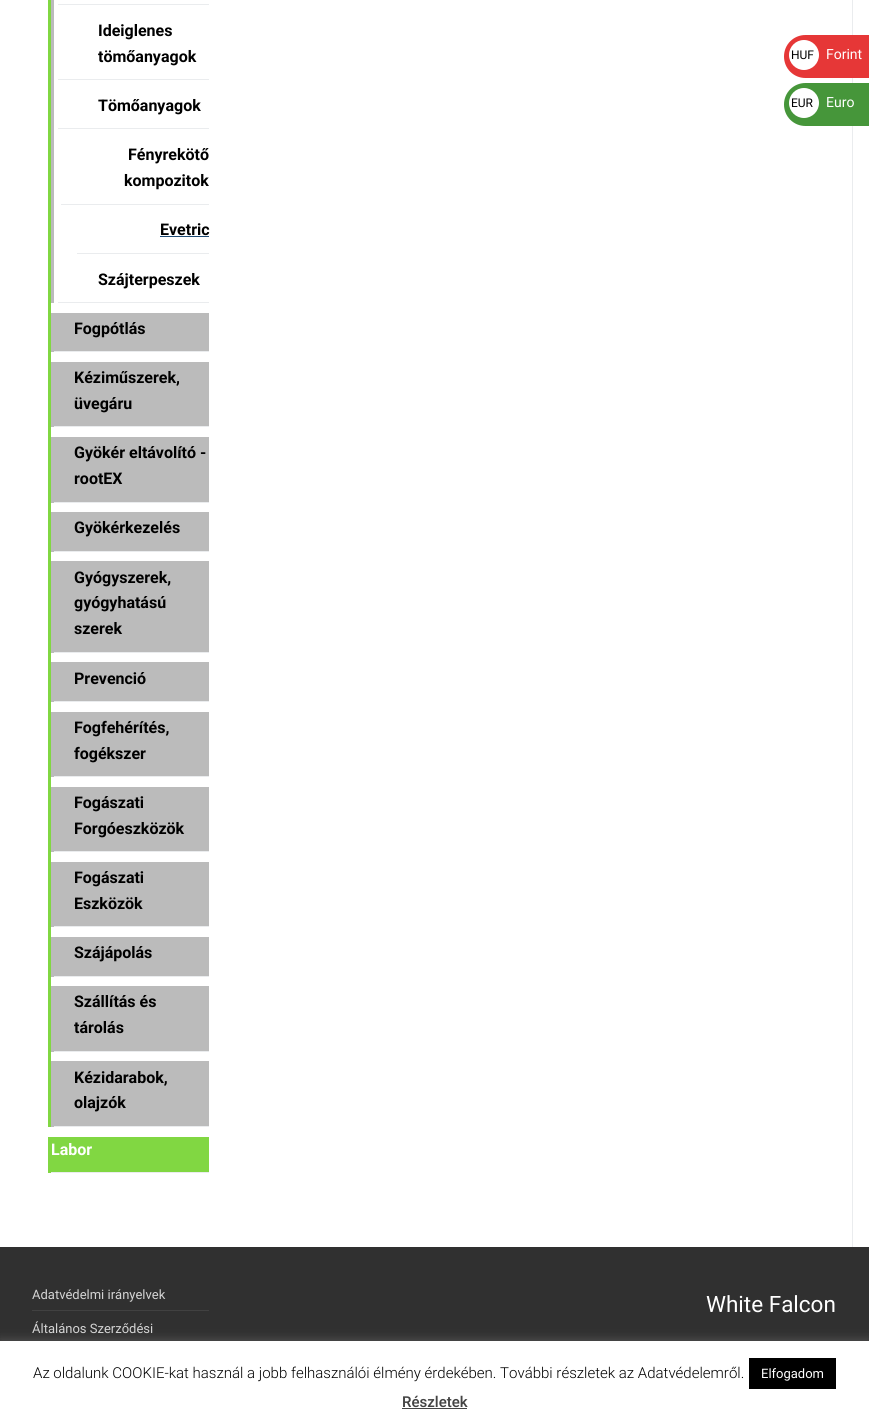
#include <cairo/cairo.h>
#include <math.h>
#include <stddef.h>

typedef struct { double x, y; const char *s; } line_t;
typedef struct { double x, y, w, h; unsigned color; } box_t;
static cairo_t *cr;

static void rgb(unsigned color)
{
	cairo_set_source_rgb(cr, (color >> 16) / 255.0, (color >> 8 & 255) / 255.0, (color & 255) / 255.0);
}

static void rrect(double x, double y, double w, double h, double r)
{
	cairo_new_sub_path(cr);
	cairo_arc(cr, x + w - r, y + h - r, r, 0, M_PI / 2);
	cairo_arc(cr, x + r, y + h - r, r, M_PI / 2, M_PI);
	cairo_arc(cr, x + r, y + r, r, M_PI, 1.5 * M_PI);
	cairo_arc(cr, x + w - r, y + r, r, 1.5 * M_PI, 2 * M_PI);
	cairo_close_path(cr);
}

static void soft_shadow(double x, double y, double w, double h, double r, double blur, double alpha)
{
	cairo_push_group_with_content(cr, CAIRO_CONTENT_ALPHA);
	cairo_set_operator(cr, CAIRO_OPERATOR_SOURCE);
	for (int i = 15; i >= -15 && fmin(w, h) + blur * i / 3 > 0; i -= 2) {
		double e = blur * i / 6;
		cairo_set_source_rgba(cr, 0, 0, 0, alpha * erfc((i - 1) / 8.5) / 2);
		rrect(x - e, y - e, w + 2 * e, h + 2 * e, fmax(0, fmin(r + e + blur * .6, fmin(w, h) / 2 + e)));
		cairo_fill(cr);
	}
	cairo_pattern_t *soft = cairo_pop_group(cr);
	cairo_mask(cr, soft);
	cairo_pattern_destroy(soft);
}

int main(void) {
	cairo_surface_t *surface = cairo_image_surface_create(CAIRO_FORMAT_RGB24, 869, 1426);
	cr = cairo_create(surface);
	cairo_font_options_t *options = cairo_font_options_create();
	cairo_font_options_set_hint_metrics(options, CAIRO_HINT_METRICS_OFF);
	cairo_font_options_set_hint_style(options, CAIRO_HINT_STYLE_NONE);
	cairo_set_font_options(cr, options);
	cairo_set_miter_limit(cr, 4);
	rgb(0xffffff);
	cairo_paint(cr);
	{
		static const box_t items[] = {
			{48, 0, 3, 1127, 0x81d742},
			{51, 0, 3, 303, 0xbbbbbb},
			{58, 4, 151, 1, 0xeaecee},
			{58, 79, 151, 1, 0xeaecee},
			{58, 128, 151, 1, 0xeaecee},
			{61, 204, 148, 1, 0xeaecee},
			{77, 253, 132, 1, 0xeaecee},
			{160, 236, 49, 1, 0x1e4b75},
			{58, 302, 151, 1, 0xeaecee},
			{51, 313, 158, 39, 0xbbbbbb},
			{54, 351, 155, 1, 0xeaecee},
			{51, 362, 158, 65, 0xbbbbbb},
			{54, 426, 155, 1, 0xeaecee},
			{51, 437, 158, 66, 0xbbbbbb},
			{54, 502, 155, 1, 0xeaecee},
			{51, 512, 158, 40, 0xbbbbbb},
			{54, 551, 155, 1, 0xeaecee},
			{51, 561, 158, 92, 0xbbbbbb},
			{54, 652, 155, 1, 0xeaecee},
			{51, 662, 158, 40, 0xbbbbbb},
			{54, 701, 155, 1, 0xeaecee},
			{51, 712, 158, 65, 0xbbbbbb},
			{54, 776, 155, 1, 0xeaecee},
			{51, 787, 158, 65, 0xbbbbbb},
			{54, 851, 155, 1, 0xeaecee},
			{51, 862, 158, 65, 0xbbbbbb},
			{54, 926, 155, 1, 0xeaecee},
			{51, 937, 158, 40, 0xbbbbbb},
			{54, 976, 155, 1, 0xeaecee},
			{51, 986, 158, 66, 0xbbbbbb},
			{54, 1051, 155, 1, 0xeaecee},
			{51, 1061, 158, 66, 0xbbbbbb},
			{54, 1126, 155, 1, 0xeaecee},
			{48, 1137, 161, 36, 0x81d742},
			{51, 1172, 158, 1, 0xeaecee},
			{852, 0, 1, 1247, 0xeaecee},
			{0, 1247, 869, 94, 0x303030},
			{32, 1310, 177, 1, 0x414141},
		};
		for (size_t i = 0; i < sizeof items / sizeof *items; i++) {
			rgb(items[i].color);
			cairo_rectangle(cr, items[i].x, items[i].y, items[i].w, items[i].h);
			cairo_fill(cr);
		}
	}
	rgb(0xe63737);
	cairo_new_path(cr);
	cairo_move_to(cr, 805.5, 35);
	cairo_line_to(cr, 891, 35);
	cairo_line_to(cr, 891, 78);
	cairo_line_to(cr, 805.5, 78);
	cairo_curve_to(cr, 793.5, 78, 784, 68.5, 784, 56.5);
	cairo_curve_to(cr, 784, 44.5, 793.5, 35, 805.5, 35);
	cairo_close_path(cr);
	cairo_fill(cr);
	rgb(0xffffff);
	cairo_arc(cr, 804, 55, 15, 0, 2 * M_PI);
	cairo_fill(cr);
	rgb(0x46963a);
	cairo_new_path(cr);
	cairo_move_to(cr, 805.5, 83);
	cairo_line_to(cr, 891, 83);
	cairo_line_to(cr, 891, 126);
	cairo_line_to(cr, 805.5, 126);
	cairo_curve_to(cr, 793.5, 126, 784, 116.5, 784, 104.5);
	cairo_curve_to(cr, 784, 92.5, 793.5, 83, 805.5, 83);
	cairo_close_path(cr);
	cairo_fill(cr);
	rgb(0xffffff);
	cairo_arc(cr, 804, 103, 15, 0, 2 * M_PI);
	cairo_fill(cr);
	rgb(0xacabab);
	soft_shadow(0, 1340, 869, 85, 0, 5, 0.3);
	{
		static const box_t items[] = {
			{0, 1341, 869, 85, 0xffffff},
			{749, 1358, 87, 31, 0x000000},
			{402, 1408, 65, 1, 0x444444},
		};
		for (size_t i = 0; i < sizeof items / sizeof *items; i++) {
			rgb(items[i].color);
			cairo_rectangle(cr, items[i].x, items[i].y, items[i].w, items[i].h);
			cairo_fill(cr);
		}
	}
	cairo_select_font_face(cr, "Roboto", CAIRO_FONT_SLANT_NORMAL, CAIRO_FONT_WEIGHT_BOLD);
	cairo_set_font_size(cr, 16);
	rgb(0x000000);
	{
		static const line_t items[] = {
			{98, 36, "Ideiglenes"},
			{98, 62, "tömőanyagok"},
			{98, 111, "Tömőanyagok"},
			{128, 160, "Fényrekötő"},
			{124, 186, "kompozitok"},
			{160, 235, "Evetric"},
			{98, 285, "Szájterpeszek"},
			{74, 334, "Fogpótlás"},
			{74, 383, "Kéziműszerek,"},
			{74, 409, "üvegáru"},
			{74, 458, "Gyökér eltávolító -"},
			{74, 484, "rootEX"},
			{74, 533, "Gyökérkezelés"},
			{74, 583, "Gyógyszerek,"},
			{74, 608, "gyógyhatású"},
			{74, 634, "szerek"},
			{74, 684, "Prevenció"},
			{74, 733, "Fogfehérítés,"},
			{74, 759, "fogékszer"},
			{74, 808, "Fogászati"},
			{74, 834, "Forgóeszközök"},
			{74, 883, "Fogászati"},
			{74, 909, "Eszközök"},
			{74, 958, "Szájápolás"},
			{74, 1007, "Szállítás és"},
			{74, 1033, "tárolás"},
			{74, 1083, "Kézidarabok,"},
			{74, 1108, "olajzók"},
		};
		for (size_t i = 0; i < sizeof items / sizeof *items; i++) {
			cairo_move_to(cr, items[i].x, items[i].y);
			cairo_show_text(cr, items[i].s);
		}
	}
	rgb(0xffffff);
	cairo_move_to(cr, 51, 1155);
	cairo_show_text(cr, "Labor");
	cairo_select_font_face(cr, "Roboto", CAIRO_FONT_SLANT_NORMAL, CAIRO_FONT_WEIGHT_NORMAL);
	cairo_set_font_size(cr, 13);
	rgb(0xd4d4d4);
	cairo_move_to(cr, 32, 1299);
	cairo_show_text(cr, "Adatvédelmi irányelvek");
	cairo_move_to(cr, 32, 1333);
	cairo_show_text(cr, "Általános Szerződési");
	cairo_set_font_size(cr, 22.5);
	rgb(0xffffff);
	cairo_move_to(cr, 706, 1312);
	cairo_show_text(cr, "White Falcon");
	cairo_set_font_size(cr, 12);
	rgb(0x000000);
	cairo_move_to(cr, 791, 59);
	cairo_show_text(cr, "HUF");
	cairo_set_font_size(cr, 14);
	rgb(0xffffff);
	cairo_move_to(cr, 826, 59);
	cairo_show_text(cr, "Forint");
	cairo_set_font_size(cr, 12);
	rgb(0x000000);
	cairo_move_to(cr, 791, 107);
	cairo_show_text(cr, "EUR");
	cairo_set_font_size(cr, 14);
	rgb(0xffffff);
	cairo_move_to(cr, 826, 107);
	cairo_show_text(cr, "Euro");
	cairo_select_font_face(cr, "Roboto Light", CAIRO_FONT_SLANT_NORMAL, CAIRO_FONT_WEIGHT_NORMAL);
	cairo_set_font_size(cr, 15);
	rgb(0x000000);
	cairo_move_to(cr, 33, 1378);
	cairo_show_text(cr, "Az oldalunk COOKIE-kat használ a jobb felhasználói élmény érdekében. További részletek az Adatvédelemről.");
	cairo_select_font_face(cr, "Roboto", CAIRO_FONT_SLANT_NORMAL, CAIRO_FONT_WEIGHT_NORMAL);
	cairo_set_font_size(cr, 13);
	rgb(0xffffff);
	cairo_move_to(cr, 761, 1378);
	cairo_show_text(cr, "Elfogadom");
	cairo_select_font_face(cr, "Roboto Medium", CAIRO_FONT_SLANT_NORMAL, CAIRO_FONT_WEIGHT_NORMAL);
	cairo_set_font_size(cr, 15);
	rgb(0x444444);
	cairo_move_to(cr, 402, 1407);
	cairo_show_text(cr, "Részletek");
	cairo_surface_write_to_png(surface, "page.png");
	cairo_font_options_destroy(options);
	cairo_destroy(cr);
	cairo_surface_destroy(surface);
	return 0;
}
